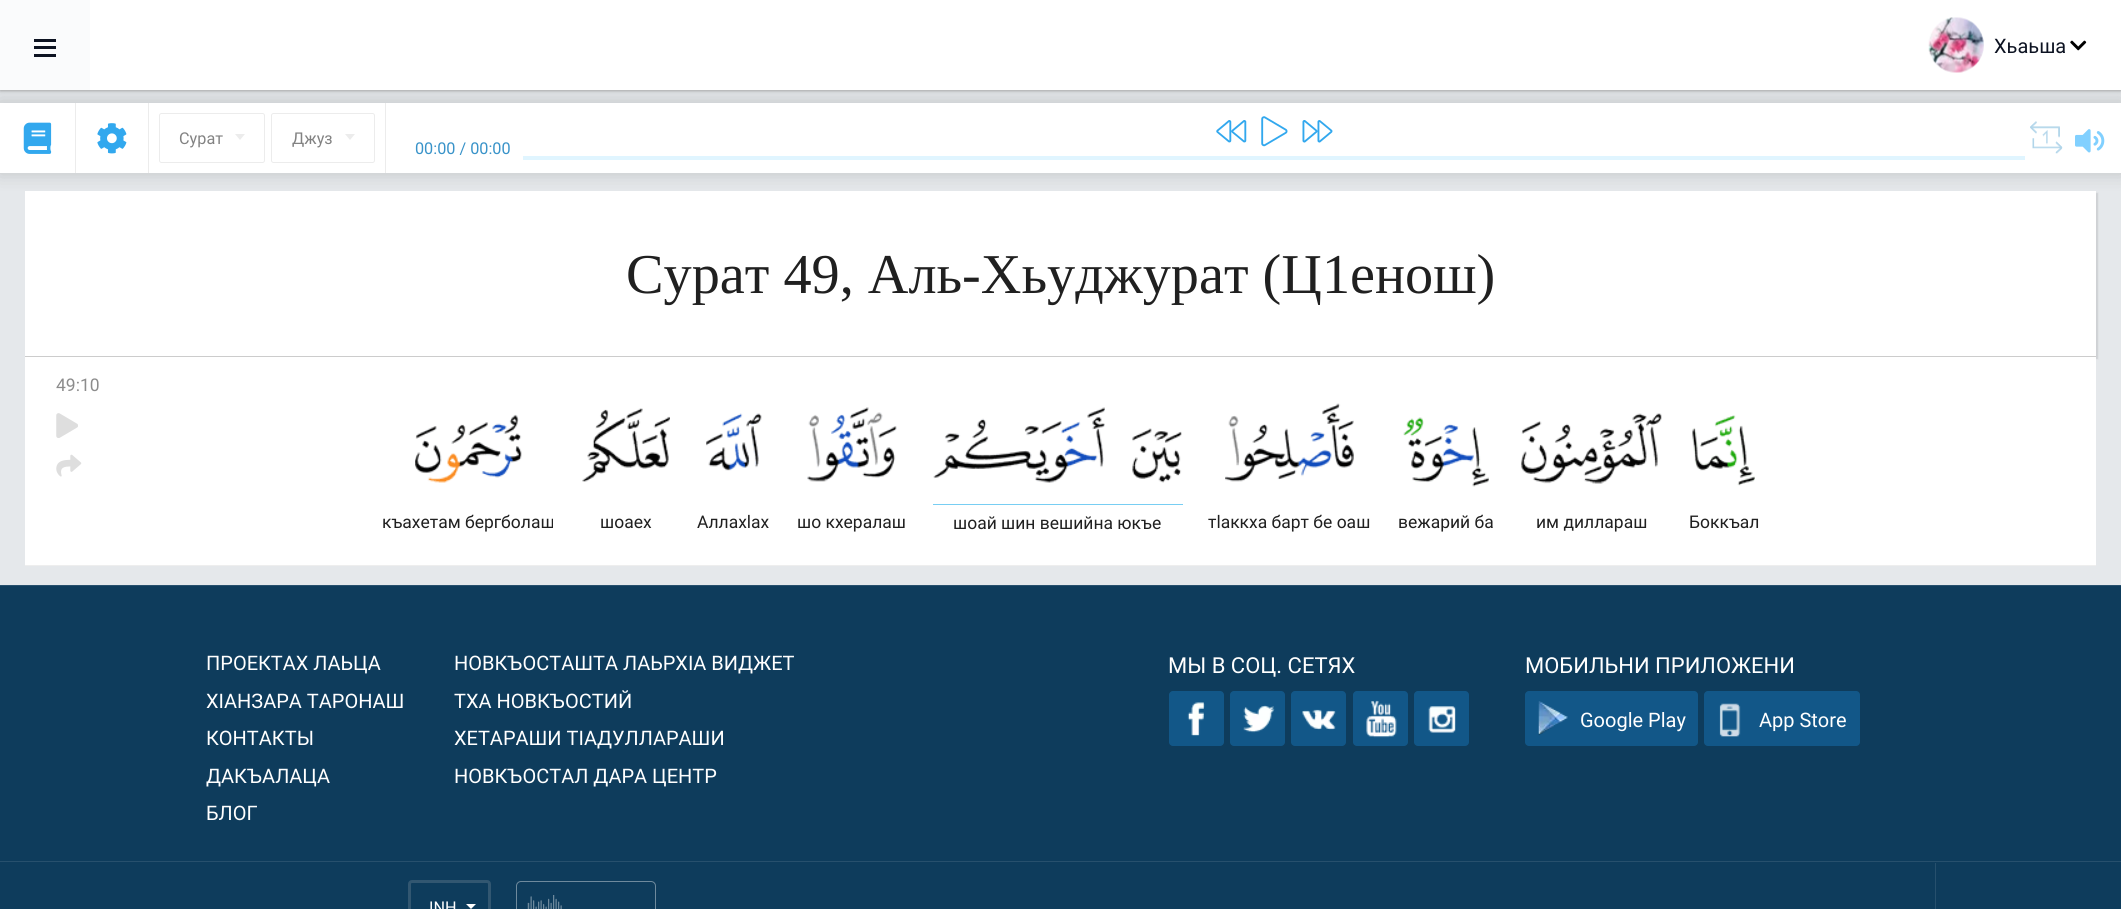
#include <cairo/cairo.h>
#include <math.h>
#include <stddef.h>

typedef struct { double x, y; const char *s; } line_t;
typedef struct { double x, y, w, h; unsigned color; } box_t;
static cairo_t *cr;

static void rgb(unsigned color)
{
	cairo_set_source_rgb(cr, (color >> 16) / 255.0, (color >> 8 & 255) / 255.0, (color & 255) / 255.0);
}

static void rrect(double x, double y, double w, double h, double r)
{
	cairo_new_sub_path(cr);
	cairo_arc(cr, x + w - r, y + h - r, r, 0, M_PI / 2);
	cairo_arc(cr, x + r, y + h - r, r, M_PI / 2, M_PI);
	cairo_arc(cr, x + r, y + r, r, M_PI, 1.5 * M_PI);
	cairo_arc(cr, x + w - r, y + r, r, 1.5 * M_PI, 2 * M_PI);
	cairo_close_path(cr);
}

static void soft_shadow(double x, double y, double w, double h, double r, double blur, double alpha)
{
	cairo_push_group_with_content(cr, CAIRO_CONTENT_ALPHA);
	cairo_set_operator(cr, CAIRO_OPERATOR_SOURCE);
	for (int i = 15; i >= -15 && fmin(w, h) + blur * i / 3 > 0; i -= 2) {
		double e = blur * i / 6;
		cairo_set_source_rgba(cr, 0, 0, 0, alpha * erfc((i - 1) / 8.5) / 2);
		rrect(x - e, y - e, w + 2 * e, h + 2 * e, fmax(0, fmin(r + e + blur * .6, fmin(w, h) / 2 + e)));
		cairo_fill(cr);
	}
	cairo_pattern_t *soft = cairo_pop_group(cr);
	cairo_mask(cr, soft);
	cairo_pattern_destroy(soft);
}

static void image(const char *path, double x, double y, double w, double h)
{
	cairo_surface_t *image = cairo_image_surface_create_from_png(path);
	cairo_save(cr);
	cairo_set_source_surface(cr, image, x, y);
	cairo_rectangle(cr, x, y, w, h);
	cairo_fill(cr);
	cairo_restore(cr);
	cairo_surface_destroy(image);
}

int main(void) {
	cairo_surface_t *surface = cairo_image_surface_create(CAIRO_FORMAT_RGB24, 2121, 909);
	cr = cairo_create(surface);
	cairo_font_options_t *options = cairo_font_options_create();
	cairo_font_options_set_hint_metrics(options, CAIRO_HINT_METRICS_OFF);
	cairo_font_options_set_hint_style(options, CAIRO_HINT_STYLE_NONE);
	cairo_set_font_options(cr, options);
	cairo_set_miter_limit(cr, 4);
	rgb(0xe5e8eb);
	cairo_paint(cr);
	rgb(0x000000);
	soft_shadow(0, 1, 2121, 90, 0, 1, 0.2);
	rgb(0xaaaaaa);
	soft_shadow(0, 1, 2121, 90, 0, 2.5, 0.5);
	rgb(0x000000);
	soft_shadow(26, 193, 2072, 166, 0, 0.5, 0.1);
	rgb(0xffffff);
	cairo_rectangle(cr, 25, 191, 2071, 374);
	cairo_fill(cr);
	rgb(0x000000);
	soft_shadow(-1, 101, 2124, 73, 0, 9.5, 0.15);
	{
		static const box_t items[] = {
			{90, 0, 2031, 90, 0xffffff},
			{0, 0, 90, 90, 0xfafbfc},
			{34, 39, 22, 3, 0x0d1322},
			{34, 46, 22, 3, 0x0d1322},
			{34, 54, 22, 3, 0x0d1322},
		};
		for (size_t i = 0; i < sizeof items / sizeof *items; i++) {
			rgb(items[i].color);
			cairo_rectangle(cr, items[i].x, items[i].y, items[i].w, items[i].h);
			cairo_fill(cr);
		}
	}
	image("img/1.png", 1928, 17, 56, 56);
	image("img/2.png", 2070, 40, 17, 11);
	rgb(0xffffff);
	cairo_rectangle(cr, 0, 103, 2121, 70);
	cairo_fill(cr);
	image("img/3.png", 23, 122, 29, 32);
	rgb(0xececec);
	cairo_rectangle(cr, 148, 103, 1, 70);
	cairo_fill(cr);
	cairo_rectangle(cr, 75, 103, 1, 70);
	cairo_fill(cr);
	image("img/4.png", 97, 123, 30, 31);
	rrect(159.5, 113.5, 105, 49, 2);
	cairo_set_line_width(cr, 1);
	cairo_stroke(cr);
	cairo_new_path(cr);
	cairo_move_to(cr, 235, 134);
	cairo_line_to(cr, 245, 134);
	cairo_line_to(cr, 240, 140);
	cairo_close_path(cr);
	cairo_fill(cr);
	rrect(271.5, 113.5, 103, 49, 2);
	cairo_stroke(cr);
	cairo_new_path(cr);
	cairo_move_to(cr, 345, 134);
	cairo_line_to(cr, 355, 134);
	cairo_line_to(cr, 350, 140);
	cairo_close_path(cr);
	cairo_fill(cr);
	cairo_rectangle(cr, 385, 103, 1, 70);
	cairo_fill(cr);
	image("img/5.png", 1216, 120, 31, 23);
	image("img/6.png", 1261, 116, 27, 31);
	image("img/7.png", 1302, 120, 31, 23);
	rgb(0xe0f5ff);
	cairo_rectangle(cr, 523, 156, 1502, 4);
	cairo_fill(cr);
	image("img/8.png", 2030, 121, 33, 33);
	image("img/9.png", 2075, 129, 30, 24);
	rgb(0xcccccc);
	cairo_rectangle(cr, 25, 356, 2071, 1);
	cairo_fill(cr);
	rgb(0xeeeeee);
	cairo_rectangle(cr, 25, 565, 2071, 1);
	cairo_fill(cr);
	image("img/10.png", 56, 413, 22, 25);
	image("img/11.png", 56, 454, 26, 23);
	image("img/12.png", 415, 414, 107, 69);
	image("img/13.png", 582, 408, 88, 74);
	image("img/14.png", 706, 413, 56, 58);
	image("img/15.png", 807, 407, 90, 75);
	image("img/16.png", 933, 407, 172, 76);
	image("img/17.png", 1132, 428, 50, 55);
	rgb(0x78cef3);
	cairo_rectangle(cr, 933, 504, 250, 1);
	cairo_fill(cr);
	image("img/18.png", 1225, 403, 129, 79);
	image("img/19.png", 1403, 417, 86, 70);
	image("img/20.png", 1521, 413, 141, 71);
	image("img/21.png", 1692, 415, 63, 71);
	rgb(0x0e3c5c);
	cairo_rectangle(cr, 0, 586, 2121, 275);
	cairo_fill(cr);
	rgb(0x27506d);
	cairo_rectangle(cr, 0, 585, 2121, 1);
	cairo_fill(cr);
	rgb(0x125788);
	rrect(1169, 691, 55, 55, 4);
	cairo_fill(cr);
	image("img/22.png", 1187, 702, 18, 34);
	rrect(1230, 691, 55, 55, 4);
	cairo_fill(cr);
	image("img/23.png", 1243, 705, 32, 28);
	rrect(1291, 691, 55, 55, 4);
	cairo_fill(cr);
	image("img/24.png", 1302, 709, 34, 21);
	rrect(1353, 691, 55, 55, 4);
	cairo_fill(cr);
	image("img/25.png", 1366, 700, 31, 38);
	rrect(1414, 691, 55, 55, 4);
	cairo_fill(cr);
	image("img/26.png", 1428, 706, 28, 27);
	rrect(1525, 691, 173, 55, 4);
	cairo_fill(cr);
	image("img/27.png", 1538, 701, 30, 35);
	rrect(1704, 691, 156, 55, 4);
	cairo_fill(cr);
	image("img/28.png", 1719, 703, 22, 34);
	{
		static const box_t items[] = {
			{0, 862, 2121, 47, 0x0e3c5c},
			{0, 861, 2121, 1, 0x27506d},
			{1935, 863, 1, 46, 0x27506d},
		};
		for (size_t i = 0; i < sizeof items / sizeof *items; i++) {
			rgb(items[i].color);
			cairo_rectangle(cr, items[i].x, items[i].y, items[i].w, items[i].h);
			cairo_fill(cr);
		}
	}
	rrect(409.5, 881.5, 80, 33, 2.5);
	rgb(0x325771);
	cairo_set_line_width(cr, 3);
	cairo_stroke(cr);
	rgb(0xffffff);
	cairo_new_path(cr);
	cairo_move_to(cr, 466, 904);
	cairo_line_to(cr, 476, 904);
	cairo_line_to(cr, 471, 909);
	cairo_close_path(cr);
	cairo_fill(cr);
	rrect(516.5, 881.5, 139, 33, 4.5);
	rgb(0x6e8a9d);
	cairo_set_line_width(cr, 1);
	cairo_stroke(cr);
	image("img/29.png", 527, 895, 35, 14);
	cairo_select_font_face(cr, "Roboto", CAIRO_FONT_SLANT_NORMAL, CAIRO_FONT_WEIGHT_NORMAL);
	cairo_set_font_size(cr, 20);
	rgb(0x0d1322);
	cairo_move_to(cr, 1994, 53);
	cairo_show_text(cr, "Хьаьша");
	cairo_set_font_size(cr, 16.25);
	rgb(0x828282);
	cairo_move_to(cr, 179, 144);
	cairo_show_text(cr, "Сурат");
	cairo_move_to(cr, 292, 144);
	cairo_show_text(cr, "Джуз");
	rgb(0x3993c9);
	cairo_move_to(cr, 415, 154);
	cairo_show_text(cr, "00:00 / 00:00");
	cairo_select_font_face(cr, "Liberation Serif", CAIRO_FONT_SLANT_NORMAL, CAIRO_FONT_WEIGHT_NORMAL);
	cairo_set_font_size(cr, 56.25);
	rgb(0x202020);
	cairo_move_to(cr, 626, 293);
	cairo_show_text(cr, "Сурат 49, Аль-Хьуджурат (Ц1енош)");
	cairo_select_font_face(cr, "Roboto", CAIRO_FONT_SLANT_NORMAL, CAIRO_FONT_WEIGHT_NORMAL);
	cairo_set_font_size(cr, 17.5);
	rgb(0x8c8c8c);
	cairo_move_to(cr, 56, 391);
	cairo_show_text(cr, "49:10");
	rgb(0x202020);
	{
		static const line_t items[] = {
			{382, 528, "къахетам бергболаш"},
			{600, 528, "шоаех"},
			{697, 528, "Аллахlах"},
			{797, 528, "шо кхералаш"},
			{953, 529, "шоай шин вешийна юкъе"},
			{1208, 528, "тlаккха барт бе оаш"},
			{1398, 528, "вежарий ба"},
			{1536, 528, "им диллараш"},
			{1689, 528, "Боккъал"},
		};
		for (size_t i = 0; i < sizeof items / sizeof *items; i++) {
			cairo_move_to(cr, items[i].x, items[i].y);
			cairo_show_text(cr, items[i].s);
		}
	}
	cairo_set_font_size(cr, 20);
	rgb(0xffffff);
	{
		static const line_t items[] = {
			{206, 670, "ПРОЕКТАХ ЛАЬЦА"},
			{206, 708, "ХIАНЗАРА ТАРОНАШ"},
			{206, 745, "КОНТАКТЫ"},
			{206, 783, "ДАКЪАЛАЦА"},
			{206, 820, "БЛОГ"},
			{454, 670, "НОВКЪОСТАШТА ЛАЬРХIА ВИДЖЕТ"},
			{454, 708, "ТХА НОВКЪОСТИЙ"},
			{454, 745, "ХЕТАРАШИ ТIАДУЛЛАРАШИ"},
			{454, 783, "НОВКЪОСТАЛ ДАРА ЦЕНТР"},
		};
		for (size_t i = 0; i < sizeof items / sizeof *items; i++) {
			cairo_move_to(cr, items[i].x, items[i].y);
			cairo_show_text(cr, items[i].s);
		}
	}
	cairo_set_font_size(cr, 22);
	cairo_move_to(cr, 1168, 673);
	cairo_show_text(cr, "МЫ В СОЦ. СЕТЯХ");
	cairo_move_to(cr, 1525, 673);
	cairo_show_text(cr, "МОБИЛЬНИ ПРИЛОЖЕНИ");
	cairo_set_font_size(cr, 20);
	cairo_move_to(cr, 1580, 727);
	cairo_show_text(cr, "Google Play");
	cairo_move_to(cr, 1759, 727);
	cairo_show_text(cr, "App Store");
	cairo_set_font_size(cr, 16.25);
	cairo_move_to(cr, 429, 913);
	cairo_show_text(cr, "INH");
	cairo_surface_write_to_png(surface, "page.png");
	cairo_font_options_destroy(options);
	cairo_destroy(cr);
	cairo_surface_destroy(surface);
	return 0;
}
